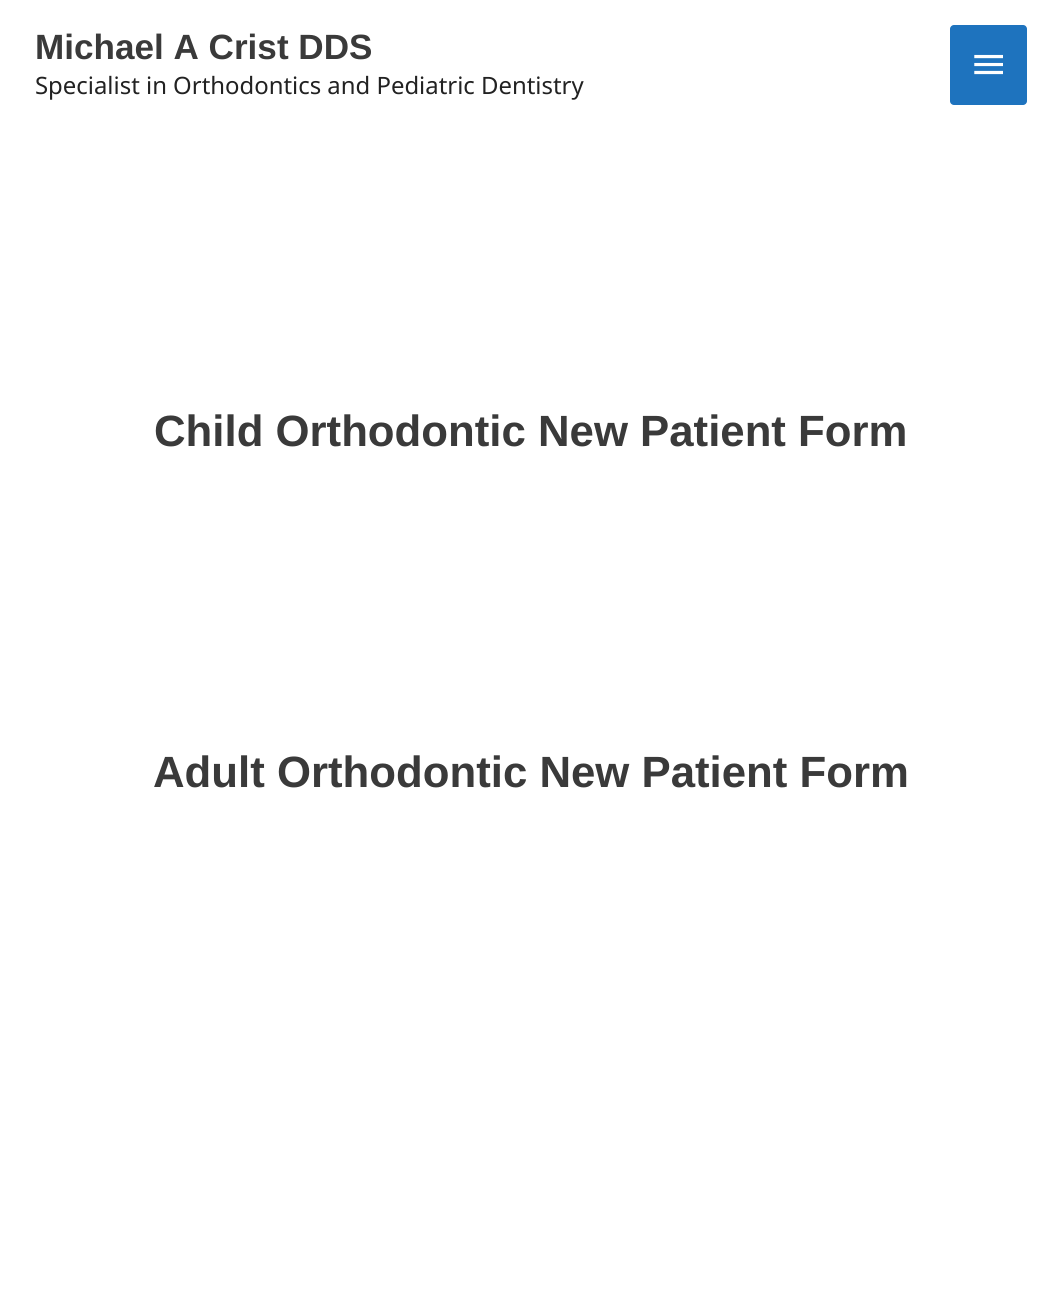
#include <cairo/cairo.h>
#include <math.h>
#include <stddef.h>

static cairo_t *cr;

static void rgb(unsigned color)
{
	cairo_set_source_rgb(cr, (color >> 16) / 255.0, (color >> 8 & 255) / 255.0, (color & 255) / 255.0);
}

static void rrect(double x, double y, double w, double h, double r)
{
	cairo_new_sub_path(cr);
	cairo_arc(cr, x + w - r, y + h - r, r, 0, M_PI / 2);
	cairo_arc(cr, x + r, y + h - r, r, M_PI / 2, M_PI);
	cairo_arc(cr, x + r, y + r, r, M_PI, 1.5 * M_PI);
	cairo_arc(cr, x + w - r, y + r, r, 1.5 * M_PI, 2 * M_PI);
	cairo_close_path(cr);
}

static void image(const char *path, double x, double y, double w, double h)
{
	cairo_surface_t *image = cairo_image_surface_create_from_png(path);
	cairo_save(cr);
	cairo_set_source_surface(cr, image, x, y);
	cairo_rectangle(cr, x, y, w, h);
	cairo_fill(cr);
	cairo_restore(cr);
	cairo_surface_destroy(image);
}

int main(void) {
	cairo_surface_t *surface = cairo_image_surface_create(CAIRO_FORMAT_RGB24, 1061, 1291);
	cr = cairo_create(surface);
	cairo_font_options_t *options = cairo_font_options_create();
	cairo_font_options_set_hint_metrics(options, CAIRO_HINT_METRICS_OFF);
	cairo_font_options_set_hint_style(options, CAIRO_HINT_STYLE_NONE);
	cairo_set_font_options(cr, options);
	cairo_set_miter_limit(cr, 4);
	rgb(0xffffff);
	cairo_paint(cr);
	rgb(0x1e73be);
	rrect(950, 25, 77, 80, 4);
	cairo_fill(cr);
	image("img/1.png", 974, 54, 29, 21);
	cairo_select_font_face(cr, "Liberation Sans", CAIRO_FONT_SLANT_NORMAL, CAIRO_FONT_WEIGHT_BOLD);
	cairo_set_font_size(cr, 35.1);
	rgb(0x3a3a3a);
	cairo_move_to(cr, 35, 59);
	cairo_show_text(cr, "Michael A Crist DDS");
	cairo_select_font_face(cr, "Noto Sans", CAIRO_FONT_SLANT_NORMAL, CAIRO_FONT_WEIGHT_NORMAL);
	cairo_set_font_size(cr, 23.9);
	rgb(0x222222);
	cairo_move_to(cr, 35, 94);
	cairo_show_text(cr, "Specialist in Orthodontics and Pediatric Dentistry");
	cairo_select_font_face(cr, "Liberation Sans", CAIRO_FONT_SLANT_NORMAL, CAIRO_FONT_WEIGHT_BOLD);
	cairo_set_font_size(cr, 43.75);
	rgb(0x3a3a3a);
	cairo_move_to(cr, 154, 446);
	cairo_show_text(cr, "Child Orthodontic New Patient Form");
	cairo_move_to(cr, 153, 787);
	cairo_show_text(cr, "Adult Orthodontic New Patient Form");
	cairo_surface_write_to_png(surface, "page.png");
	cairo_font_options_destroy(options);
	cairo_destroy(cr);
	cairo_surface_destroy(surface);
	return 0;
}
